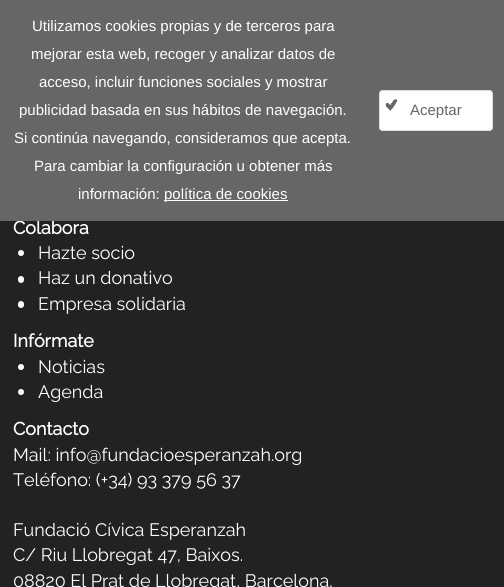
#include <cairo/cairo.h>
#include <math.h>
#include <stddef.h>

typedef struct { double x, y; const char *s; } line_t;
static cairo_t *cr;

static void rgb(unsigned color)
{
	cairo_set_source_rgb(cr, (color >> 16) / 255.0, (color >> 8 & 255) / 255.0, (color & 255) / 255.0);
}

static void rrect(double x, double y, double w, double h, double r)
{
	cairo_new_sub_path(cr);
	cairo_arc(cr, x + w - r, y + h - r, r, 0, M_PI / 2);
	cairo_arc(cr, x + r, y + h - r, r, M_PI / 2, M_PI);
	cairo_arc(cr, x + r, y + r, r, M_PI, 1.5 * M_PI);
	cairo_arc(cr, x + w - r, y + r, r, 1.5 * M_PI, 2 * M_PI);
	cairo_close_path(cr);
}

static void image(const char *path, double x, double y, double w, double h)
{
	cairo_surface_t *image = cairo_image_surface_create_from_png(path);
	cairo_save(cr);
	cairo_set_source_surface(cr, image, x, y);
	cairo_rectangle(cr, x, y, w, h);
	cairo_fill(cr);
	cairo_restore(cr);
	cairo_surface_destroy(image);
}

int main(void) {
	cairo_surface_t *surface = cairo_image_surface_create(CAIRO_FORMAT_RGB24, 504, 587);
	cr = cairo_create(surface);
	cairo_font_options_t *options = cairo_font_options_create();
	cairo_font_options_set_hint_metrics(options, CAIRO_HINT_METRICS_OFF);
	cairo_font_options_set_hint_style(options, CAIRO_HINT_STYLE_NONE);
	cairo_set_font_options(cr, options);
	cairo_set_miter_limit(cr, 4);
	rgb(0x222222);
	cairo_paint(cr);
	rgb(0xffffff);
	cairo_arc(cr, 21, 253, 3, 0, 2 * M_PI);
	cairo_fill(cr);
	rrect(18, 276, 6, 7, 3);
	cairo_fill(cr);
	rrect(18, 301, 6, 7, 3);
	cairo_fill(cr);
	cairo_arc(cr, 21, 367, 3, 0, 2 * M_PI);
	cairo_fill(cr);
	cairo_arc(cr, 21, 392, 3, 0, 2 * M_PI);
	cairo_fill(cr);
	cairo_select_font_face(cr, "Raleway", CAIRO_FONT_SLANT_NORMAL, CAIRO_FONT_WEIGHT_BOLD);
	cairo_set_font_size(cr, 18);
	cairo_move_to(cr, 13, 234);
	cairo_show_text(cr, "Colabora");
	rgb(0x666666);
	cairo_rectangle(cr, 0, 0, 504, 221);
	cairo_fill(cr);
	rgb(0xffffff);
	cairo_rectangle(cr, 164, 200, 124, 1);
	cairo_fill(cr);
	cairo_select_font_face(cr, "Liberation Sans", CAIRO_FONT_SLANT_NORMAL, CAIRO_FONT_WEIGHT_NORMAL);
	cairo_set_font_size(cr, 15);
	{
		static const line_t items[] = {
			{164, 199, "política de cookies"},
			{78, 199, "información:"},
			{34, 171, "Para cambiar la configuración u obtener más"},
			{14, 143, "Si continúa navegando, consideramos que acepta."},
			{19, 115, "publicidad basada en sus hábitos de navegación."},
			{39, 87, "acceso, incluir funciones sociales y mostrar"},
			{31, 59, "mejorar esta web, recoger y analizar datos de"},
			{32, 31, "Utilizamos cookies propias y de terceros para"},
		};
		for (size_t i = 0; i < sizeof items / sizeof *items; i++) {
			cairo_move_to(cr, items[i].x, items[i].y);
			cairo_show_text(cr, items[i].s);
		}
	}
	rrect(379, 90, 114, 41, 4);
	cairo_fill(cr);
	image("img/1.png", 385, 99, 12, 12);
	rrect(379.5, 90.5, 113, 40, 3.5);
	rgb(0xdcdcdc);
	cairo_set_line_width(cr, 1);
	cairo_stroke(cr);
	rgb(0x666666);
	cairo_move_to(cr, 410, 115);
	cairo_show_text(cr, "Aceptar");
	cairo_select_font_face(cr, "Raleway Thin", CAIRO_FONT_SLANT_NORMAL, CAIRO_FONT_WEIGHT_NORMAL);
	cairo_set_font_size(cr, 18);
	rgb(0xffffff);
	{
		static const line_t items[] = {
			{38, 259, "Hazte socio"},
			{38, 284, "Haz un donativo"},
			{38, 310, "Empresa solidaria"},
		};
		for (size_t i = 0; i < sizeof items / sizeof *items; i++) {
			cairo_move_to(cr, items[i].x, items[i].y);
			cairo_show_text(cr, items[i].s);
		}
	}
	cairo_select_font_face(cr, "Raleway", CAIRO_FONT_SLANT_NORMAL, CAIRO_FONT_WEIGHT_BOLD);
	cairo_move_to(cr, 13, 347);
	cairo_show_text(cr, "Infórmate");
	cairo_select_font_face(cr, "Raleway Thin", CAIRO_FONT_SLANT_NORMAL, CAIRO_FONT_WEIGHT_NORMAL);
	cairo_move_to(cr, 38, 373);
	cairo_show_text(cr, "Noticias");
	cairo_move_to(cr, 38, 398);
	cairo_show_text(cr, "Agenda");
	cairo_select_font_face(cr, "Raleway", CAIRO_FONT_SLANT_NORMAL, CAIRO_FONT_WEIGHT_BOLD);
	cairo_move_to(cr, 13, 435);
	cairo_show_text(cr, "Contacto");
	cairo_select_font_face(cr, "Raleway Thin", CAIRO_FONT_SLANT_NORMAL, CAIRO_FONT_WEIGHT_NORMAL);
	{
		static const line_t items[] = {
			{13, 461, "Mail: info@fundacioesperanzah.org"},
			{13, 486, "Teléfono: (+34) 93 379 56 37"},
			{13, 536, "Fundació Cívica Esperanzah"},
			{13, 561, "C/ Riu Llobregat 47, Baixos."},
			{13, 587, "08820 El Prat de Llobregat, Barcelona."},
		};
		for (size_t i = 0; i < sizeof items / sizeof *items; i++) {
			cairo_move_to(cr, items[i].x, items[i].y);
			cairo_show_text(cr, items[i].s);
		}
	}
	cairo_surface_write_to_png(surface, "page.png");
	cairo_font_options_destroy(options);
	cairo_destroy(cr);
	cairo_surface_destroy(surface);
	return 0;
}
